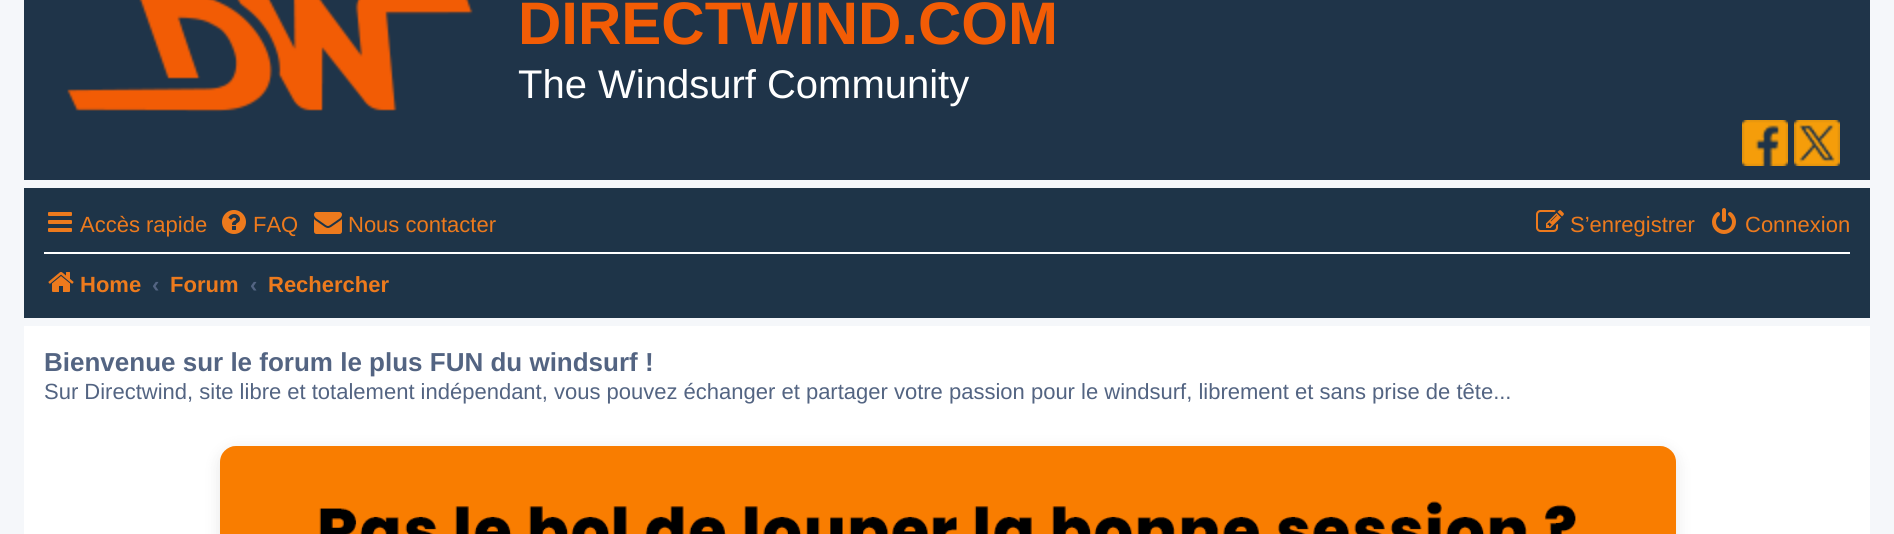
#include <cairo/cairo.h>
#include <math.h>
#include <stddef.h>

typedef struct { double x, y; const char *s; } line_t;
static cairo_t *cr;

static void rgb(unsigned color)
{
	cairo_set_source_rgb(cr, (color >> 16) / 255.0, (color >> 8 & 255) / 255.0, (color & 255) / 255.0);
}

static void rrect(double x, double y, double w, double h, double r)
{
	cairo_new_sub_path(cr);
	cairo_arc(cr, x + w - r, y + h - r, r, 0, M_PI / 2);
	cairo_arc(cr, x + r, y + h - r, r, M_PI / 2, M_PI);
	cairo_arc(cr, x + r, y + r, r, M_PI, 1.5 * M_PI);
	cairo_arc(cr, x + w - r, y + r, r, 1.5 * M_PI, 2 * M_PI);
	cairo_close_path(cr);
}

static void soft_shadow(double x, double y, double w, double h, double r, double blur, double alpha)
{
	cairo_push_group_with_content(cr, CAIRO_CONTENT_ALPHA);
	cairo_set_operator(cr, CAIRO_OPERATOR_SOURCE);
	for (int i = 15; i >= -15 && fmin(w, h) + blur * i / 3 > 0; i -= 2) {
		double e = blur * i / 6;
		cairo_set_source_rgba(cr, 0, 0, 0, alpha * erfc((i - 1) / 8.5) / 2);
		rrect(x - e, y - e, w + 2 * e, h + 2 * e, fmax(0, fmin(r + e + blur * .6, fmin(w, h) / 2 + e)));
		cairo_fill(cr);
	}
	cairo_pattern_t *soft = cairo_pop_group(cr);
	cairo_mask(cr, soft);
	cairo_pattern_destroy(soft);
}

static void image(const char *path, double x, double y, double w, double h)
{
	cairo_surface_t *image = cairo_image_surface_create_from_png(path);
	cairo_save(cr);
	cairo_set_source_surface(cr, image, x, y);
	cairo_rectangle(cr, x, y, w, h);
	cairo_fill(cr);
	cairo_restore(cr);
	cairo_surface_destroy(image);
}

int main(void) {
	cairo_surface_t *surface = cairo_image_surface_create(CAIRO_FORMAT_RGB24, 1894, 534);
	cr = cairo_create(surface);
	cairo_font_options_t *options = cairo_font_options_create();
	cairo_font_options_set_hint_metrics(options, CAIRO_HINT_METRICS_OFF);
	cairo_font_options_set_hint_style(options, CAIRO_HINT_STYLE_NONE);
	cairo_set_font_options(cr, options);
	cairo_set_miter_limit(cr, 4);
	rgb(0xf5f7fa);
	cairo_paint(cr);
	rgb(0x1f3449);
	cairo_rectangle(cr, 24, 0, 1846, 180);
	cairo_fill(cr);
	image("img/1.png", 67, 0, 406, 112);
	image("img/2.png", 1742, 120, 46, 46);
	image("img/3.png", 1794, 120, 46, 46);
	rgb(0x1e3448);
	cairo_rectangle(cr, 24, 188, 1846, 130);
	cairo_fill(cr);
	image("img/4.png", 48, 212, 24, 20);
	image("img/5.png", 222, 210, 24, 24);
	image("img/6.png", 314, 212, 28, 22);
	image("img/7.png", 1536, 210, 28, 22);
	image("img/8.png", 1712, 208, 24, 26);
	rgb(0xffffff);
	cairo_rectangle(cr, 44, 252, 1806, 2);
	cairo_fill(cr);
	image("img/9.png", 48, 272, 26, 20);
	cairo_rectangle(cr, 24, 326, 1846, 208);
	cairo_fill(cr);
	rgb(0x000000);
	soft_shadow(220, 450, 1456, 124, 16, 8, 0.1);
	rgb(0xf5f5f5);
	rrect(220, 446, 1456, 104, 16);
	cairo_fill(cr);
	image("img/10.png", 220, 446, 1456, 88);
	cairo_select_font_face(cr, "Liberation Sans", CAIRO_FONT_SLANT_NORMAL, CAIRO_FONT_WEIGHT_BOLD);
	cairo_set_font_size(cr, 60);
	rgb(0xf25c05);
	cairo_move_to(cr, 518, 44);
	cairo_show_text(cr, "DIRECTWIND.COM");
	cairo_select_font_face(cr, "Liberation Sans", CAIRO_FONT_SLANT_NORMAL, CAIRO_FONT_WEIGHT_NORMAL);
	cairo_set_font_size(cr, 40);
	rgb(0xffffff);
	cairo_move_to(cr, 518, 98);
	cairo_show_text(cr, "The Windsurf Community");
	cairo_set_font_size(cr, 22);
	rgb(0xed7a1d);
	{
		static const line_t items[] = {
			{80, 232, "Accès rapide"},
			{253, 232, "FAQ"},
			{348, 232, "Nous contacter"},
			{1570, 232, "S’enregistrer"},
			{1745, 232, "Connexion"},
		};
		for (size_t i = 0; i < sizeof items / sizeof *items; i++) {
			cairo_move_to(cr, items[i].x, items[i].y);
			cairo_show_text(cr, items[i].s);
		}
	}
	cairo_select_font_face(cr, "Liberation Sans", CAIRO_FONT_SLANT_NORMAL, CAIRO_FONT_WEIGHT_BOLD);
	cairo_move_to(cr, 80, 292);
	cairo_show_text(cr, "Home");
	rgb(0x536482);
	cairo_move_to(cr, 152, 292);
	cairo_show_text(cr, "‹");
	rgb(0xed7a1d);
	cairo_move_to(cr, 170, 292);
	cairo_show_text(cr, "Forum");
	rgb(0x536482);
	cairo_move_to(cr, 250, 292);
	cairo_show_text(cr, "‹");
	rgb(0xed7a1d);
	cairo_move_to(cr, 268, 292);
	cairo_show_text(cr, "Rechercher");
	cairo_set_font_size(cr, 26);
	rgb(0x536482);
	cairo_move_to(cr, 44, 371);
	cairo_show_text(cr, "Bienvenue sur le forum le plus FUN du windsurf !");
	cairo_select_font_face(cr, "Liberation Sans", CAIRO_FONT_SLANT_NORMAL, CAIRO_FONT_WEIGHT_NORMAL);
	cairo_set_font_size(cr, 22);
	cairo_move_to(cr, 44, 399);
	cairo_show_text(cr, "Sur Directwind, site libre et totalement indépendant, vous pouvez échanger et partager votre passion pour le windsurf, librement et sans prise de tête...");
	cairo_surface_write_to_png(surface, "page.png");
	cairo_font_options_destroy(options);
	cairo_destroy(cr);
	cairo_surface_destroy(surface);
	return 0;
}
